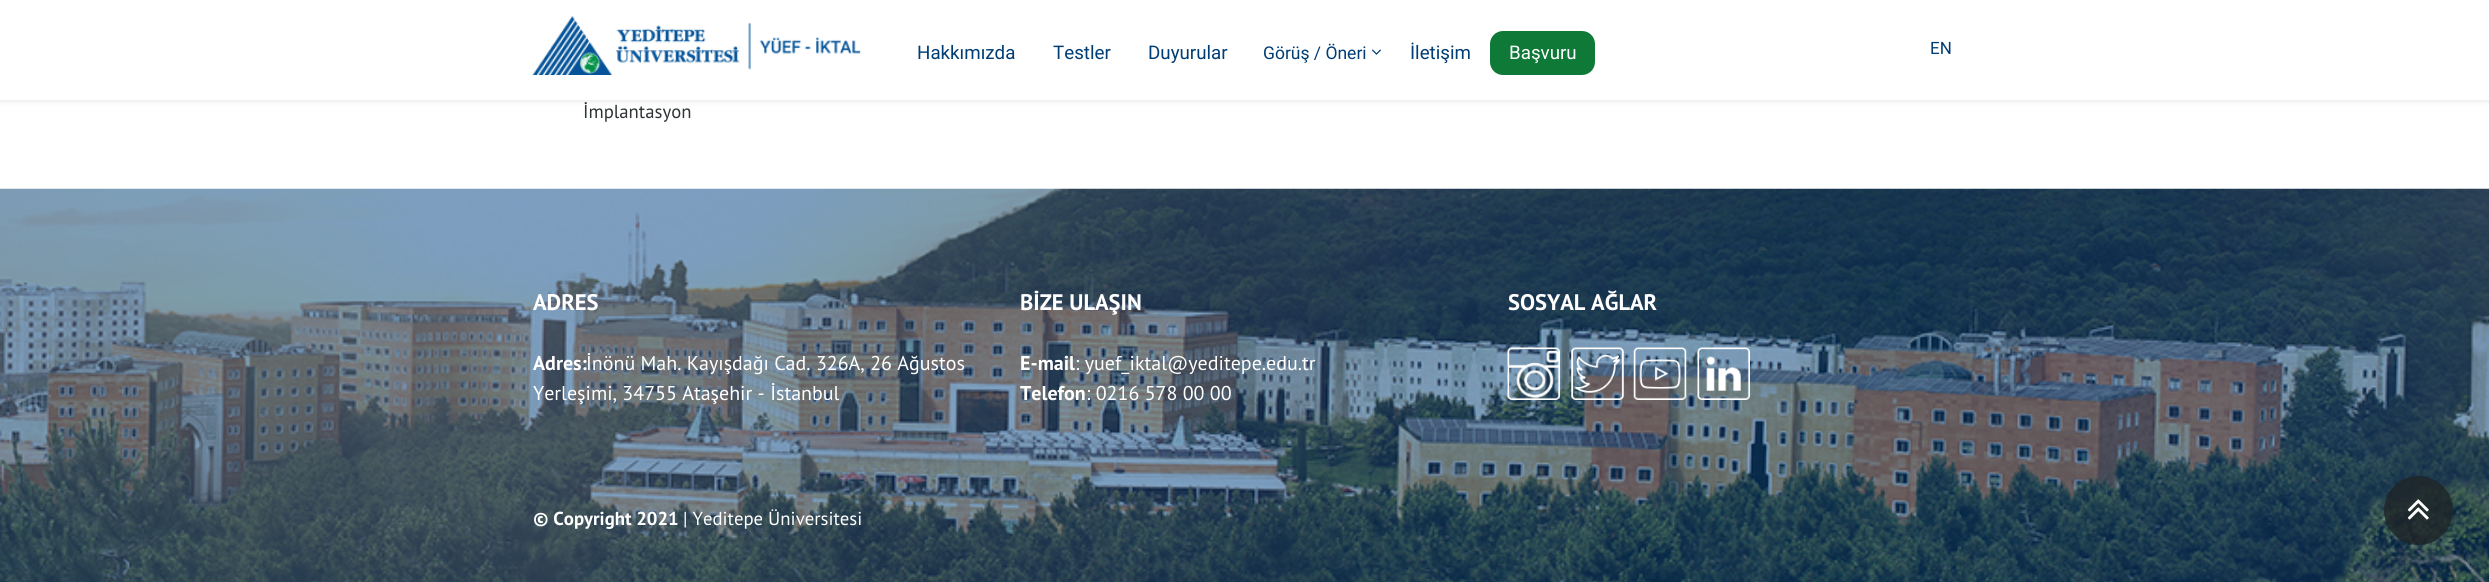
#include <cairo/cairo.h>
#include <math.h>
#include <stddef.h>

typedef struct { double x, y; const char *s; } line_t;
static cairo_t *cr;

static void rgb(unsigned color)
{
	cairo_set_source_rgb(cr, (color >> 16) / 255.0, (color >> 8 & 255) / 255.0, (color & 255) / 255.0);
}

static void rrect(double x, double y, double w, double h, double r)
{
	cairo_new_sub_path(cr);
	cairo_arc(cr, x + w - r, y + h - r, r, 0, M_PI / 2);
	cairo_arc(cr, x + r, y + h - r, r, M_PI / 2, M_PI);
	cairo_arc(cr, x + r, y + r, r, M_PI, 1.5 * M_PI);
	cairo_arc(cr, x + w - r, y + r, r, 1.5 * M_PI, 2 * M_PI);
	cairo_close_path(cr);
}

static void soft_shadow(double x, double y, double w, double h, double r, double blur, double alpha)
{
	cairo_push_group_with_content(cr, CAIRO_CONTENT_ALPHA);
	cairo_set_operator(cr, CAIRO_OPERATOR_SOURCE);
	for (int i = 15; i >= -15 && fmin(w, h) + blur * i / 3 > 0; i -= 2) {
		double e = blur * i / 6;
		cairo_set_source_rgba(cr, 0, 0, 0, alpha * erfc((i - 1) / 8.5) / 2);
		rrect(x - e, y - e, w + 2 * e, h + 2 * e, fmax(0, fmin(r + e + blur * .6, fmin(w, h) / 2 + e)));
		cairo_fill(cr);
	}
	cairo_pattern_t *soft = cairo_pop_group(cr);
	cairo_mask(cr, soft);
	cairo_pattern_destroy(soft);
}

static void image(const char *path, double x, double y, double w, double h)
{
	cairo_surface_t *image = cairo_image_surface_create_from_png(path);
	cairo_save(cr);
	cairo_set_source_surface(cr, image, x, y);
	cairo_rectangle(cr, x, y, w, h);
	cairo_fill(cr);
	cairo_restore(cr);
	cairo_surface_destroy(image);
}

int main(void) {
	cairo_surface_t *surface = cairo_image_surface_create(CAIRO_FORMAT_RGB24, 2489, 582);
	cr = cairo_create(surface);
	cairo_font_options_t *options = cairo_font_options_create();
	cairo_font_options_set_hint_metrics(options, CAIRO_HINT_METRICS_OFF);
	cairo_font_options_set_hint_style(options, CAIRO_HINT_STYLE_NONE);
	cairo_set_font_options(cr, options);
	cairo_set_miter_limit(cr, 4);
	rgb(0xffffff);
	cairo_paint(cr);
	rgb(0xdbdbdb);
	soft_shadow(0, 0, 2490, 100, 0, 3, 1);
	rgb(0xffffff);
	cairo_rectangle(cr, 0, 0, 2489, 100);
	cairo_fill(cr);
	image("img/1.png", 532, 16, 329, 59);
	image("img/2.png", 1372, 49, 9, 6);
	rgb(0x0f7937);
	rrect(1490, 31, 105, 44, 13);
	cairo_fill(cr);
	image("img/3.png", 0, 188, 2489, 394);
	image("img/4.png", 1507, 347, 53, 53);
	image("img/5.png", 1571, 347, 53, 53);
	image("img/6.png", 1633, 347, 54, 53);
	image("img/7.png", 1697, 347, 53, 53);
	cairo_set_source_rgba(cr, 0.118, 0.145, 0.153, 0.8);
	cairo_arc(cr, 2418.5, 510.5, 34.5, 0, 2 * M_PI);
	cairo_fill(cr);
	image("img/8.png", 2407, 499, 22, 21);
	cairo_select_font_face(cr, "Roboto", CAIRO_FONT_SLANT_NORMAL, CAIRO_FONT_WEIGHT_NORMAL);
	cairo_set_font_size(cr, 18.75);
	rgb(0x003d74);
	{
		static const line_t items[] = {
			{917, 59, "Hakkımızda"},
			{1053, 59, "Testler"},
			{1148, 59, "Duyurular"},
		};
		for (size_t i = 0; i < sizeof items / sizeof *items; i++) {
			cairo_move_to(cr, items[i].x, items[i].y);
			cairo_show_text(cr, items[i].s);
		}
	}
	cairo_set_font_size(cr, 17.5);
	cairo_move_to(cr, 1263, 59);
	cairo_show_text(cr, "Görüş / Öneri");
	cairo_set_font_size(cr, 18.75);
	cairo_move_to(cr, 1410, 59);
	cairo_show_text(cr, "İletişim");
	rgb(0xffffff);
	cairo_move_to(cr, 1509, 59);
	cairo_show_text(cr, "Başvuru");
	cairo_set_font_size(cr, 17);
	rgb(0x003d74);
	cairo_move_to(cr, 1930, 54);
	cairo_show_text(cr, "EN");
	cairo_select_font_face(cr, "PT Sans", CAIRO_FONT_SLANT_NORMAL, CAIRO_FONT_WEIGHT_NORMAL);
	cairo_set_font_size(cr, 18.75);
	rgb(0x2e3436);
	cairo_move_to(cr, 583, 118);
	cairo_show_text(cr, "İmplantasyon");
	cairo_select_font_face(cr, "PT Sans", CAIRO_FONT_SLANT_NORMAL, CAIRO_FONT_WEIGHT_BOLD);
	cairo_set_font_size(cr, 22.5);
	rgb(0xffffff);
	cairo_move_to(cr, 533, 310);
	cairo_show_text(cr, "ADRES");
	cairo_set_font_size(cr, 20);
	cairo_move_to(cr, 533, 370);
	cairo_show_text(cr, "Adres:");
	cairo_select_font_face(cr, "PT Sans", CAIRO_FONT_SLANT_NORMAL, CAIRO_FONT_WEIGHT_NORMAL);
	cairo_move_to(cr, 586, 370);
	cairo_show_text(cr, "İnönü Mah. Kayışdağı Cad. 326A, 26 Ağustos");
	cairo_move_to(cr, 533, 400);
	cairo_show_text(cr, "Yerleşimi, 34755 Ataşehir - İstanbul");
	cairo_select_font_face(cr, "PT Sans", CAIRO_FONT_SLANT_NORMAL, CAIRO_FONT_WEIGHT_BOLD);
	cairo_set_font_size(cr, 18.75);
	cairo_move_to(cr, 533, 525);
	cairo_show_text(cr, "© Copyright 2021");
	cairo_select_font_face(cr, "PT Sans", CAIRO_FONT_SLANT_NORMAL, CAIRO_FONT_WEIGHT_NORMAL);
	cairo_move_to(cr, 683, 525);
	cairo_show_text(cr, "| Yeditepe Üniversitesi");
	cairo_select_font_face(cr, "PT Sans", CAIRO_FONT_SLANT_NORMAL, CAIRO_FONT_WEIGHT_BOLD);
	cairo_set_font_size(cr, 22.5);
	cairo_move_to(cr, 1020, 310);
	cairo_show_text(cr, "BİZE ULAŞIN");
	cairo_set_font_size(cr, 20);
	cairo_move_to(cr, 1020, 370);
	cairo_show_text(cr, "E-mail");
	cairo_select_font_face(cr, "PT Sans", CAIRO_FONT_SLANT_NORMAL, CAIRO_FONT_WEIGHT_NORMAL);
	cairo_move_to(cr, 1075, 370);
	cairo_show_text(cr, ": yuef_iktal@yeditepe.edu.tr");
	cairo_select_font_face(cr, "PT Sans", CAIRO_FONT_SLANT_NORMAL, CAIRO_FONT_WEIGHT_BOLD);
	cairo_move_to(cr, 1020, 400);
	cairo_show_text(cr, "Telefon");
	cairo_select_font_face(cr, "PT Sans", CAIRO_FONT_SLANT_NORMAL, CAIRO_FONT_WEIGHT_NORMAL);
	cairo_move_to(cr, 1086, 400);
	cairo_show_text(cr, ": 0216 578 00 00");
	cairo_select_font_face(cr, "PT Sans", CAIRO_FONT_SLANT_NORMAL, CAIRO_FONT_WEIGHT_BOLD);
	cairo_set_font_size(cr, 22.5);
	cairo_move_to(cr, 1508, 310);
	cairo_show_text(cr, "SOSYAL AĞLAR");
	cairo_surface_write_to_png(surface, "page.png");
	cairo_font_options_destroy(options);
	cairo_destroy(cr);
	cairo_surface_destroy(surface);
	return 0;
}
